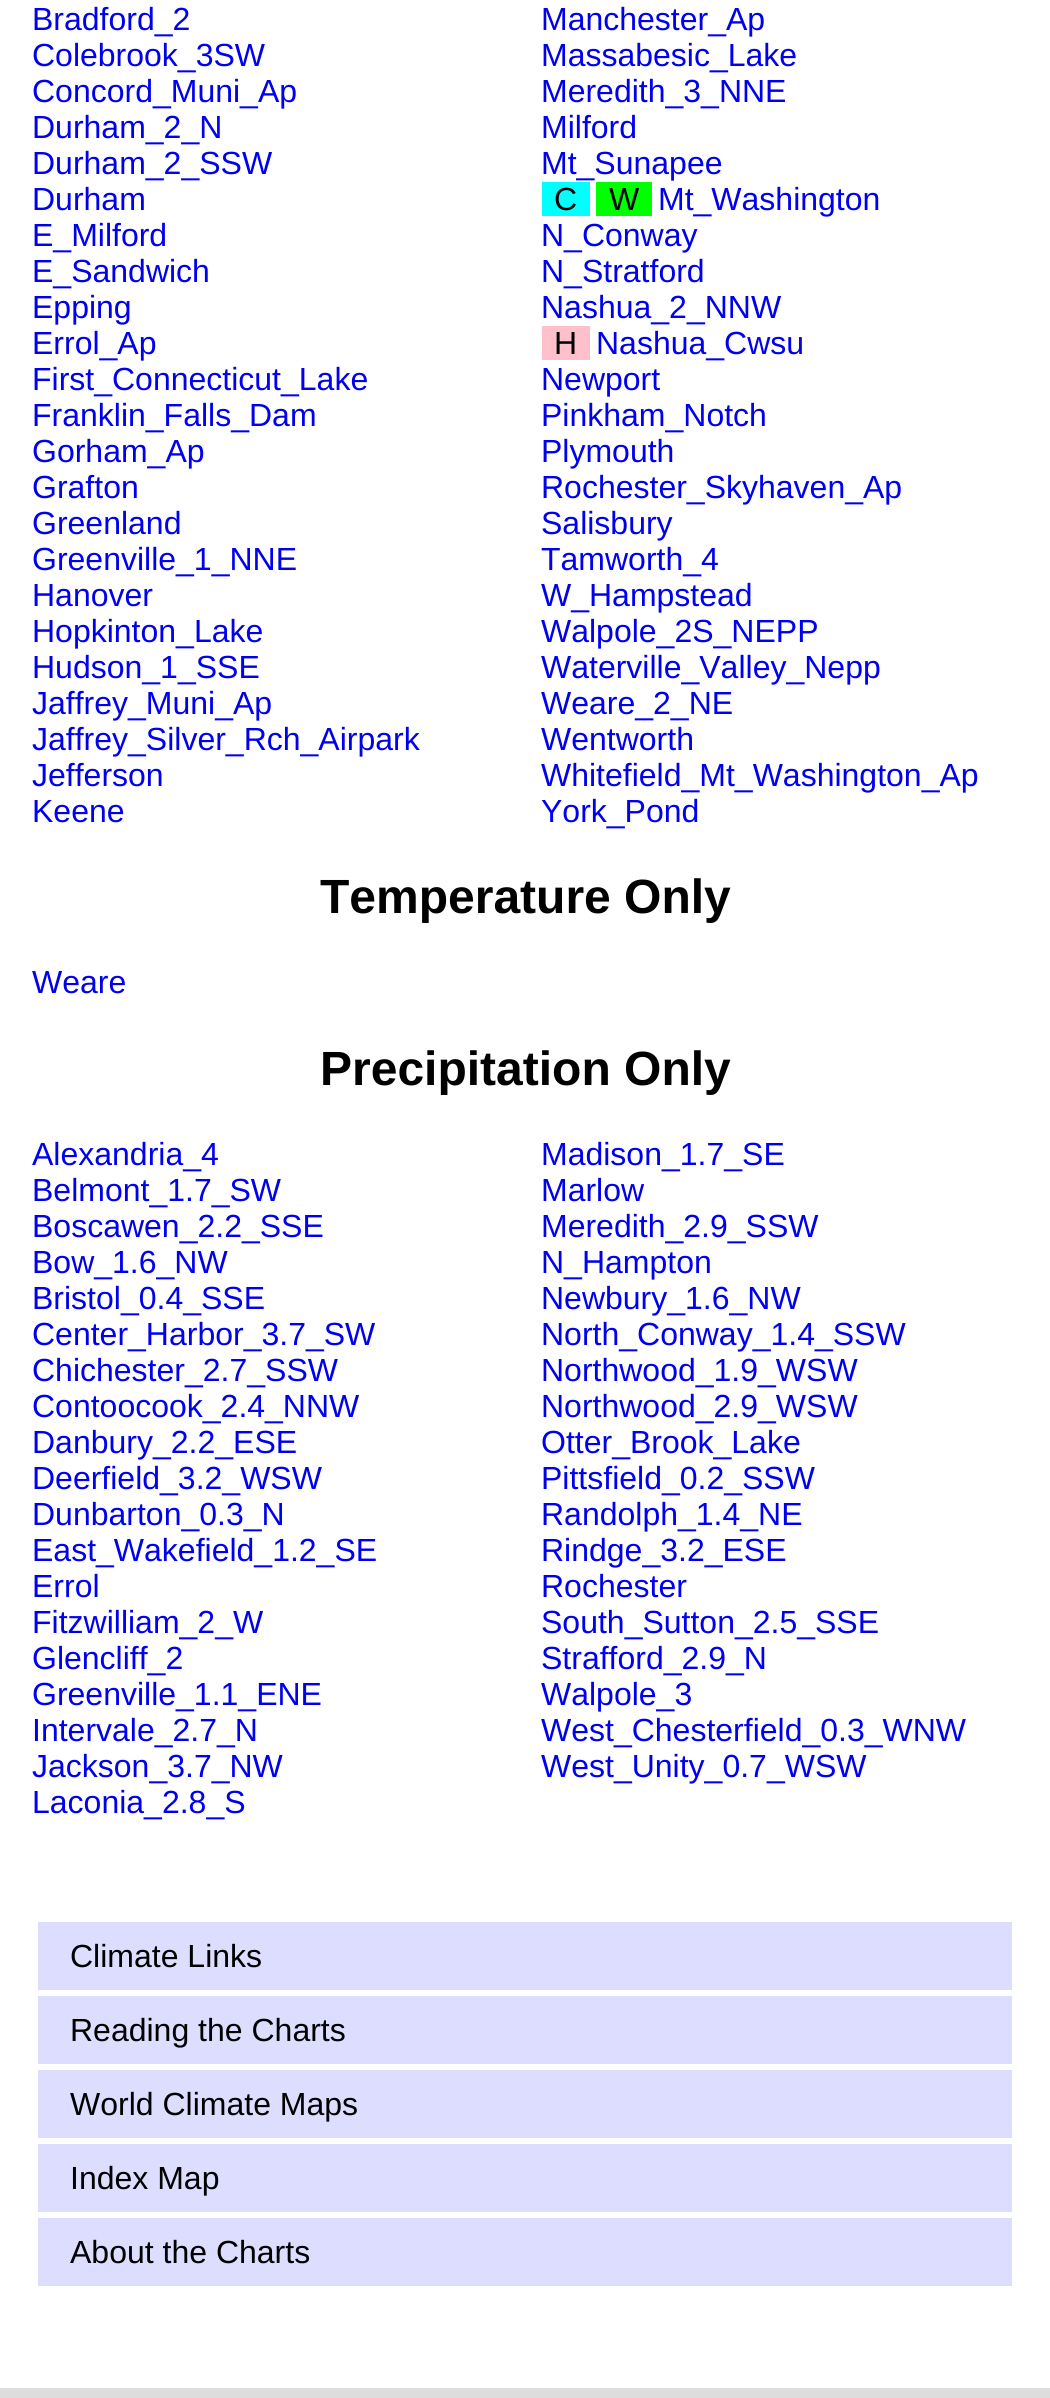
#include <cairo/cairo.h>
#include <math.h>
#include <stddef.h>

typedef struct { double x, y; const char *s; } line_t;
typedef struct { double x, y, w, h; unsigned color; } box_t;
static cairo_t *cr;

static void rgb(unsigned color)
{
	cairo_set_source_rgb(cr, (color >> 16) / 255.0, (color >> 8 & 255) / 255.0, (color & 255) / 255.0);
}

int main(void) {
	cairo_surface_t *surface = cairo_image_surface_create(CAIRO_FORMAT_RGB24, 1050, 2398);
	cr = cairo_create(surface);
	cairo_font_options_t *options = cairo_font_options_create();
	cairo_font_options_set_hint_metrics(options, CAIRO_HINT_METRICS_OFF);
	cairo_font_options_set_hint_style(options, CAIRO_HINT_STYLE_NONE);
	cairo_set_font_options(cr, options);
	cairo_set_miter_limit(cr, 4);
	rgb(0xffffff);
	cairo_paint(cr);
	{
		static const box_t items[] = {
			{542, 182, 48, 34, 0x00ffff},
			{596, 182, 56, 34, 0x00ff00},
			{542, 326, 48, 34, 0xffc0cb},
			{38, 1922, 974, 68, 0xddddff},
			{38, 1996, 974, 68, 0xddddff},
			{38, 2070, 974, 68, 0xddddff},
			{38, 2144, 974, 68, 0xddddff},
			{38, 2218, 974, 68, 0xddddff},
			{0, 2388, 1050, 10, 0xdddddd},
		};
		for (size_t i = 0; i < sizeof items / sizeof *items; i++) {
			rgb(items[i].color);
			cairo_rectangle(cr, items[i].x, items[i].y, items[i].w, items[i].h);
			cairo_fill(cr);
		}
	}
	cairo_select_font_face(cr, "Liberation Sans", CAIRO_FONT_SLANT_NORMAL, CAIRO_FONT_WEIGHT_NORMAL);
	cairo_set_font_size(cr, 32);
	rgb(0x0000ee);
	{
		static const line_t items[] = {
			{32, 30, "Bradford_2"},
			{541, 30, "Manchester_Ap"},
			{32, 66, "Colebrook_3SW"},
			{541, 66, "Massabesic_Lake"},
			{32, 102, "Concord_Muni_Ap"},
			{541, 102, "Meredith_3_NNE"},
			{32, 138, "Durham_2_N"},
			{541, 138, "Milford"},
			{32, 174, "Durham_2_SSW"},
			{541, 174, "Mt_Sunapee"},
			{32, 210, "Durham"},
		};
		for (size_t i = 0; i < sizeof items / sizeof *items; i++) {
			cairo_move_to(cr, items[i].x, items[i].y);
			cairo_show_text(cr, items[i].s);
		}
	}
	rgb(0x000000);
	cairo_move_to(cr, 554, 210);
	cairo_show_text(cr, "C");
	cairo_move_to(cr, 609, 210);
	cairo_show_text(cr, "W");
	rgb(0x0000ee);
	{
		static const line_t items[] = {
			{658, 210, "Mt_Washington"},
			{32, 246, "E_Milford"},
			{541, 246, "N_Conway"},
			{32, 282, "E_Sandwich"},
			{541, 282, "N_Stratford"},
			{32, 318, "Epping"},
			{541, 318, "Nashua_2_NNW"},
			{32, 354, "Errol_Ap"},
		};
		for (size_t i = 0; i < sizeof items / sizeof *items; i++) {
			cairo_move_to(cr, items[i].x, items[i].y);
			cairo_show_text(cr, items[i].s);
		}
	}
	rgb(0x000000);
	cairo_move_to(cr, 554, 354);
	cairo_show_text(cr, "H");
	rgb(0x0000ee);
	{
		static const line_t items[] = {
			{596, 354, "Nashua_Cwsu"},
			{32, 390, "First_Connecticut_Lake"},
			{541, 390, "Newport"},
			{32, 426, "Franklin_Falls_Dam"},
			{541, 426, "Pinkham_Notch"},
			{32, 462, "Gorham_Ap"},
			{541, 462, "Plymouth"},
			{32, 498, "Grafton"},
			{541, 498, "Rochester_Skyhaven_Ap"},
			{32, 534, "Greenland"},
			{541, 534, "Salisbury"},
			{32, 570, "Greenville_1_NNE"},
			{541, 570, "Tamworth_4"},
			{32, 606, "Hanover"},
			{541, 606, "W_Hampstead"},
			{32, 642, "Hopkinton_Lake"},
			{541, 642, "Walpole_2S_NEPP"},
			{32, 678, "Hudson_1_SSE"},
			{541, 678, "Waterville_Valley_Nepp"},
			{32, 714, "Jaffrey_Muni_Ap"},
			{541, 714, "Weare_2_NE"},
			{32, 750, "Jaffrey_Silver_Rch_Airpark"},
			{541, 750, "Wentworth"},
			{32, 786, "Jefferson"},
			{541, 786, "Whitefield_Mt_Washington_Ap"},
			{32, 822, "Keene"},
			{541, 822, "York_Pond"},
		};
		for (size_t i = 0; i < sizeof items / sizeof *items; i++) {
			cairo_move_to(cr, items[i].x, items[i].y);
			cairo_show_text(cr, items[i].s);
		}
	}
	cairo_select_font_face(cr, "Liberation Sans", CAIRO_FONT_SLANT_NORMAL, CAIRO_FONT_WEIGHT_BOLD);
	cairo_set_font_size(cr, 48);
	rgb(0x000000);
	cairo_move_to(cr, 320, 913);
	cairo_show_text(cr, "Temperature Only");
	cairo_select_font_face(cr, "Liberation Sans", CAIRO_FONT_SLANT_NORMAL, CAIRO_FONT_WEIGHT_NORMAL);
	cairo_set_font_size(cr, 32);
	rgb(0x0000ee);
	cairo_move_to(cr, 32, 993);
	cairo_show_text(cr, "Weare");
	cairo_select_font_face(cr, "Liberation Sans", CAIRO_FONT_SLANT_NORMAL, CAIRO_FONT_WEIGHT_BOLD);
	cairo_set_font_size(cr, 48);
	rgb(0x000000);
	cairo_move_to(cr, 320, 1085);
	cairo_show_text(cr, "Precipitation Only");
	cairo_select_font_face(cr, "Liberation Sans", CAIRO_FONT_SLANT_NORMAL, CAIRO_FONT_WEIGHT_NORMAL);
	cairo_set_font_size(cr, 32);
	rgb(0x0000ee);
	{
		static const line_t items[] = {
			{32, 1165, "Alexandria_4"},
			{541, 1165, "Madison_1.7_SE"},
			{32, 1201, "Belmont_1.7_SW"},
			{541, 1201, "Marlow"},
			{32, 1237, "Boscawen_2.2_SSE"},
			{541, 1237, "Meredith_2.9_SSW"},
			{32, 1273, "Bow_1.6_NW"},
			{541, 1273, "N_Hampton"},
			{32, 1309, "Bristol_0.4_SSE"},
			{541, 1309, "Newbury_1.6_NW"},
			{32, 1345, "Center_Harbor_3.7_SW"},
			{541, 1345, "North_Conway_1.4_SSW"},
			{32, 1381, "Chichester_2.7_SSW"},
			{541, 1381, "Northwood_1.9_WSW"},
			{32, 1417, "Contoocook_2.4_NNW"},
			{541, 1417, "Northwood_2.9_WSW"},
			{32, 1453, "Danbury_2.2_ESE"},
			{541, 1453, "Otter_Brook_Lake"},
			{32, 1489, "Deerfield_3.2_WSW"},
			{541, 1489, "Pittsfield_0.2_SSW"},
			{32, 1525, "Dunbarton_0.3_N"},
			{541, 1525, "Randolph_1.4_NE"},
			{32, 1561, "East_Wakefield_1.2_SE"},
			{541, 1561, "Rindge_3.2_ESE"},
			{32, 1597, "Errol"},
			{541, 1597, "Rochester"},
			{32, 1633, "Fitzwilliam_2_W"},
			{541, 1633, "South_Sutton_2.5_SSE"},
			{32, 1669, "Glencliff_2"},
			{541, 1669, "Strafford_2.9_N"},
			{32, 1705, "Greenville_1.1_ENE"},
			{541, 1705, "Walpole_3"},
			{32, 1741, "Intervale_2.7_N"},
			{541, 1741, "West_Chesterfield_0.3_WNW"},
			{32, 1777, "Jackson_3.7_NW"},
			{541, 1777, "West_Unity_0.7_WSW"},
			{32, 1813, "Laconia_2.8_S"},
		};
		for (size_t i = 0; i < sizeof items / sizeof *items; i++) {
			cairo_move_to(cr, items[i].x, items[i].y);
			cairo_show_text(cr, items[i].s);
		}
	}
	rgb(0x000000);
	{
		static const line_t items[] = {
			{70, 1967, "Climate Links"},
			{70, 2041, "Reading the Charts"},
			{70, 2115, "World Climate Maps"},
			{70, 2189, "Index Map"},
			{70, 2263, "About the Charts"},
		};
		for (size_t i = 0; i < sizeof items / sizeof *items; i++) {
			cairo_move_to(cr, items[i].x, items[i].y);
			cairo_show_text(cr, items[i].s);
		}
	}
	cairo_surface_write_to_png(surface, "page.png");
	cairo_font_options_destroy(options);
	cairo_destroy(cr);
	cairo_surface_destroy(surface);
	return 0;
}
